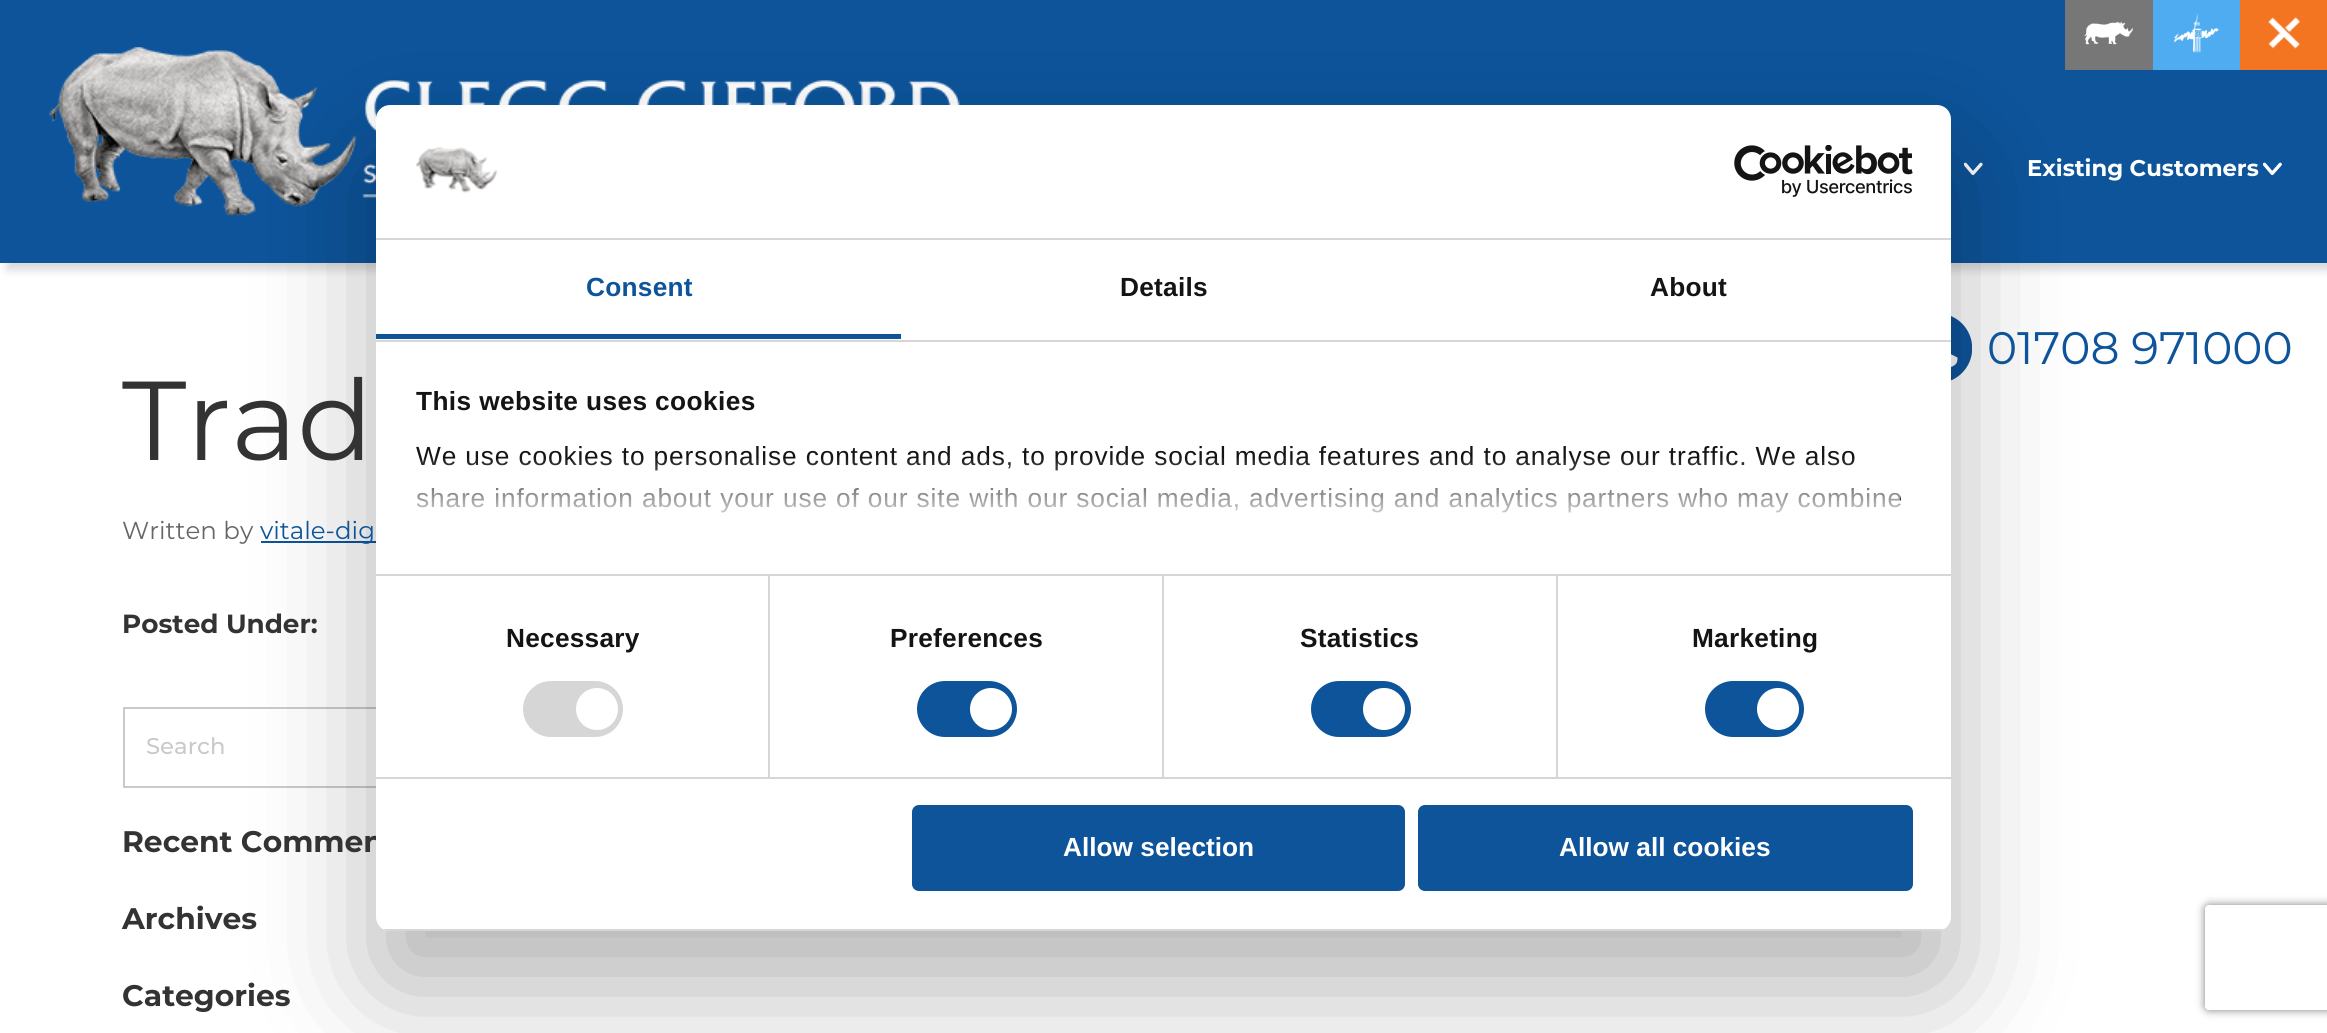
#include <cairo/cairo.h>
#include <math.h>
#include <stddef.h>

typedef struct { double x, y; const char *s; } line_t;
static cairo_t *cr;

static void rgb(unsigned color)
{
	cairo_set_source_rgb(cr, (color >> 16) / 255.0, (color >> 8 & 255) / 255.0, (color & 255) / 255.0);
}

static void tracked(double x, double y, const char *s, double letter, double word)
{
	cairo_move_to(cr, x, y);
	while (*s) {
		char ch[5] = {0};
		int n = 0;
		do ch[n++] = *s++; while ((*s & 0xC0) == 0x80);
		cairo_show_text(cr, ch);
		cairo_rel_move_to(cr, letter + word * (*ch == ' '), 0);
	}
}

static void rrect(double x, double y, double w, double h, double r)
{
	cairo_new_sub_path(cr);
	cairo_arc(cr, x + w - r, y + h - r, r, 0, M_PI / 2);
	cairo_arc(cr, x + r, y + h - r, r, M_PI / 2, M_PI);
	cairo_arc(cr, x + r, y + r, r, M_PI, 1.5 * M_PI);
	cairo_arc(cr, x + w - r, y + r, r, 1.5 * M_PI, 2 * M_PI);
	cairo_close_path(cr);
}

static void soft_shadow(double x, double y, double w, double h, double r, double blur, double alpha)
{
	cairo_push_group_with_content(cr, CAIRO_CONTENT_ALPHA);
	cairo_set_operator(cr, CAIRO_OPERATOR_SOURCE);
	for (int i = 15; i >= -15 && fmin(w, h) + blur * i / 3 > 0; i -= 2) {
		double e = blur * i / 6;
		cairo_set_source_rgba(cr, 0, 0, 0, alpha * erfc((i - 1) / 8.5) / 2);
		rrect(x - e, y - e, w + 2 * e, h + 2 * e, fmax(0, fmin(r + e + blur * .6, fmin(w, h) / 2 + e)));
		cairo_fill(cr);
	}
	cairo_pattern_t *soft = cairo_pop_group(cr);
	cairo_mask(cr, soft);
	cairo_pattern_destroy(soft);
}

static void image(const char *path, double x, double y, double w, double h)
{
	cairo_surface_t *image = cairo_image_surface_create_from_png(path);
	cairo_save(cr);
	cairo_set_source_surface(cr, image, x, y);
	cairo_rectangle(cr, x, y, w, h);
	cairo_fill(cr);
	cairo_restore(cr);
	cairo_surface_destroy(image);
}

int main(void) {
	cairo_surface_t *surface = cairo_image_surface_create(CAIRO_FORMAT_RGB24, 2327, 1033);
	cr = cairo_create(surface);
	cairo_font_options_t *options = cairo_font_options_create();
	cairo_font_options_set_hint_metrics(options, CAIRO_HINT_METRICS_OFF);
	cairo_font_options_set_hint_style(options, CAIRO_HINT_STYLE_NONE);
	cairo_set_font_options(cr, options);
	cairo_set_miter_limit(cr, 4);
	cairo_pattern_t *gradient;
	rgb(0xffffff);
	cairo_paint(cr);
	rgb(0x000000);
	soft_shadow(7, 11, 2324, 259, 0, 4.5, 0.15);
	rgb(0x0d549b);
	cairo_rectangle(cr, 0, 0, 2327, 263);
	cairo_fill(cr);
	rgb(0x777777);
	cairo_rectangle(cr, 2065, 0, 88, 70);
	cairo_fill(cr);
	image("img/1.png", 2084, 21, 49, 24);
	rgb(0x4facf1);
	cairo_rectangle(cr, 2153, 0, 87, 70);
	cairo_fill(cr);
	image("img/2.png", 2174, 12, 45, 41);
	rgb(0xf47521);
	cairo_rectangle(cr, 2240, 0, 87, 70);
	cairo_fill(cr);
	image("img/3.png", 2268, 17, 32, 32);
	rgb(0x0d549b);
	cairo_rectangle(cr, 261, 541, 115, 2);
	cairo_fill(cr);
	cairo_rectangle(cr, 124, 708, 822, 79);
	rgb(0xcacaca);
	cairo_stroke(cr);
	image("img/6.png", 49, 47, 911, 169);
	image("img/7.png", 1964, 162, 19, 13);
	image("img/9.png", 1951, 316, 21, 65);
	rgb(0x000000);
	soft_shadow(376, 161, 1575, 826, 14, 59.5, 0.3);
	image("img/8.png", 2263, 162, 19, 14);
	cairo_save(cr);
	cairo_set_fill_rule(cr, CAIRO_FILL_RULE_EVEN_ODD);
	cairo_new_path(cr);
	cairo_move_to(cr, 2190, 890);
	cairo_line_to(cr, 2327, 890);
	cairo_line_to(cr, 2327, 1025);
	cairo_line_to(cr, 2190, 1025);
	cairo_close_path(cr);
	cairo_move_to(cr, 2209, 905);
	cairo_line_to(cr, 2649, 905);
	cairo_curve_to(cr, 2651, 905, 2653, 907, 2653, 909);
	cairo_line_to(cr, 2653, 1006);
	cairo_curve_to(cr, 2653, 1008, 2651, 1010, 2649, 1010);
	cairo_line_to(cr, 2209, 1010);
	cairo_curve_to(cr, 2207, 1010, 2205, 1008, 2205, 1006);
	cairo_line_to(cr, 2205, 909);
	cairo_curve_to(cr, 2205, 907, 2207, 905, 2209, 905);
	cairo_close_path(cr);
	cairo_clip(cr);
	rgb(0x808080);
	soft_shadow(2205, 905, 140, 105, 4, 4.5, 1);
	cairo_restore(cr);
	cairo_select_font_face(cr, "Montserrat", CAIRO_FONT_SLANT_NORMAL, CAIRO_FONT_WEIGHT_NORMAL);
	cairo_set_font_size(cr, 112);
	rgb(0x333333);
	cairo_move_to(cr, 122, 460);
	cairo_show_text(cr, "Trad");
	cairo_set_font_size(cr, 24.5);
	rgb(0x666666);
	cairo_move_to(cr, 122, 539);
	cairo_show_text(cr, "Written by");
	rgb(0x0d549b);
	cairo_move_to(cr, 260, 539);
	cairo_show_text(cr, "vitale-dig");
	cairo_select_font_face(cr, "Montserrat", CAIRO_FONT_SLANT_NORMAL, CAIRO_FONT_WEIGHT_BOLD);
	cairo_set_font_size(cr, 26.25);
	rgb(0x333333);
	cairo_move_to(cr, 122, 633);
	cairo_show_text(cr, "Posted Under:");
	cairo_select_font_face(cr, "Montserrat Medium", CAIRO_FONT_SLANT_NORMAL, CAIRO_FONT_WEIGHT_NORMAL);
	cairo_set_font_size(cr, 22.75);
	rgb(0xcacaca);
	cairo_move_to(cr, 146, 754);
	cairo_show_text(cr, "Search");
	cairo_select_font_face(cr, "Montserrat", CAIRO_FONT_SLANT_NORMAL, CAIRO_FONT_WEIGHT_BOLD);
	cairo_set_font_size(cr, 29.75);
	rgb(0x333333);
	{
		static const line_t items[] = {
			{122, 852, "Recent Commen"},
			{122, 929, "Archives"},
			{122, 1006, "Categories"},
		};
		for (size_t i = 0; i < sizeof items / sizeof *items; i++) {
			cairo_move_to(cr, items[i].x, items[i].y);
			cairo_show_text(cr, items[i].s);
		}
	}
	rgb(0xffffff);
	rrect(376, 105, 1575, 826, 14);
	cairo_fill(cr);
	rgb(0xd6d6d6);
	cairo_rectangle(cr, 376, 238, 1575, 2);
	cairo_fill(cr);
	image("img/4.png", 416, 146, 82, 47);
	image("img/5.png", 1734, 145, 179, 52);
	cairo_rectangle(cr, 376, 340, 1575, 2);
	cairo_fill(cr);
	rgb(0x0d549b);
	cairo_rectangle(cr, 376, 334, 525, 5);
	cairo_fill(cr);
	cairo_select_font_face(cr, "Liberation Sans", CAIRO_FONT_SLANT_NORMAL, CAIRO_FONT_WEIGHT_BOLD);
	cairo_set_font_size(cr, 26.25);
	tracked(586, 296, "Consent", 0.25, 0);
	rgb(0x141414);
	tracked(1120, 296, "Details", 0.25, 0);
	tracked(1650, 296, "About", 0.25, 0);
	rgb(0xd6d6d6);
	cairo_rectangle(cr, 376, 574, 1575, 2);
	cairo_fill(cr);
	rgb(0x141414);
	tracked(416, 410, "This website uses cookies", 0.4, 0);
	cairo_select_font_face(cr, "Liberation Sans", CAIRO_FONT_SLANT_NORMAL, CAIRO_FONT_WEIGHT_NORMAL);
	tracked(416, 465, "We use cookies to personalise content and ads, to provide social media features and to analyse our traffic. We also", 0.88, 0);
	tracked(416, 507, "share information about your use of our site with our social media, advertising and analytics partners who may combine", 0.88, 0);
	gradient = cairo_pattern_create_linear(1146, 573, 1146, 456);
	cairo_pattern_add_color_stop_rgba(gradient, 0, 1, 1, 1, 1);
	cairo_pattern_add_color_stop_rgba(gradient, 0.5, 1, 1, 1, 0.8);
	cairo_pattern_add_color_stop_rgba(gradient, 1, 1, 1, 1, 0);
	cairo_set_source(cr, gradient);
	cairo_pattern_destroy(gradient);
	cairo_rectangle(cr, 416, 458, 1484, 55);
	cairo_fill(cr);
	rgb(0xd6d6d6);
	cairo_rectangle(cr, 376, 777, 1575, 2);
	cairo_fill(cr);
	cairo_rectangle(cr, 768, 576, 2, 201);
	cairo_fill(cr);
	cairo_select_font_face(cr, "Liberation Sans", CAIRO_FONT_SLANT_NORMAL, CAIRO_FONT_WEIGHT_BOLD);
	rgb(0x141414);
	tracked(506, 647, "Necessary", 0.25, 0);
	rgb(0xd6d6d6);
	rrect(523, 681, 100, 56, 28);
	cairo_fill(cr);
	rgb(0xffffff);
	cairo_arc(cr, 597, 709, 21, 0, 2 * M_PI);
	cairo_fill(cr);
	rgb(0xd6d6d6);
	cairo_rectangle(cr, 1162, 576, 2, 201);
	cairo_fill(cr);
	rgb(0x141414);
	tracked(890, 647, "Preferences", 0.25, 0);
	rgb(0x0d549b);
	rrect(917, 681, 100, 56, 28);
	cairo_fill(cr);
	rgb(0xffffff);
	cairo_arc(cr, 991, 709, 21, 0, 2 * M_PI);
	cairo_fill(cr);
	rgb(0xd6d6d6);
	cairo_rectangle(cr, 1556, 576, 2, 201);
	cairo_fill(cr);
	rgb(0x141414);
	tracked(1300, 647, "Statistics", 0.25, 0);
	rgb(0x0d549b);
	rrect(1311, 681, 100, 56, 28);
	cairo_fill(cr);
	rgb(0xffffff);
	cairo_arc(cr, 1384, 709, 21, 0, 2 * M_PI);
	cairo_fill(cr);
	rgb(0x141414);
	tracked(1692, 647, "Marketing", 0.25, 0);
	rgb(0x0d549b);
	rrect(1705, 681, 99, 56, 28);
	cairo_fill(cr);
	rgb(0xffffff);
	cairo_arc(cr, 1778, 709, 21, 0, 2 * M_PI);
	cairo_fill(cr);
	cairo_save(cr);
	rrect(376, 105, 1575, 826, 14);
	cairo_clip(cr);
	rgb(0xd6d6d6);
	cairo_rectangle(cr, 376, 929, 1575, 2);
	cairo_fill(cr);
	cairo_restore(cr);
	rgb(0x0d549b);
	rrect(914, 807, 489, 82, 5);
	cairo_fill_preserve(cr);
	cairo_set_line_width(cr, 4);
	cairo_stroke(cr);
	rgb(0xffffff);
	cairo_move_to(cr, 1063, 856);
	cairo_show_text(cr, "Allow selection");
	rgb(0x0d549b);
	rrect(1420, 807, 491, 82, 5);
	cairo_fill_preserve(cr);
	cairo_stroke(cr);
	rgb(0xffffff);
	cairo_move_to(cr, 1559, 856);
	cairo_show_text(cr, "Allow all cookies");
	cairo_select_font_face(cr, "Montserrat", CAIRO_FONT_SLANT_NORMAL, CAIRO_FONT_WEIGHT_BOLD);
	cairo_set_font_size(cr, 22.75);
	cairo_move_to(cr, 2027, 176);
	cairo_show_text(cr, "Existing Customers");
	cairo_select_font_face(cr, "Montserrat", CAIRO_FONT_SLANT_NORMAL, CAIRO_FONT_WEIGHT_NORMAL);
	cairo_set_font_size(cr, 45.5);
	rgb(0x0d549b);
	cairo_move_to(cr, 1987, 364);
	cairo_show_text(cr, "01708 971000");
	cairo_surface_write_to_png(surface, "page.png");
	cairo_font_options_destroy(options);
	cairo_destroy(cr);
	cairo_surface_destroy(surface);
	return 0;
}
